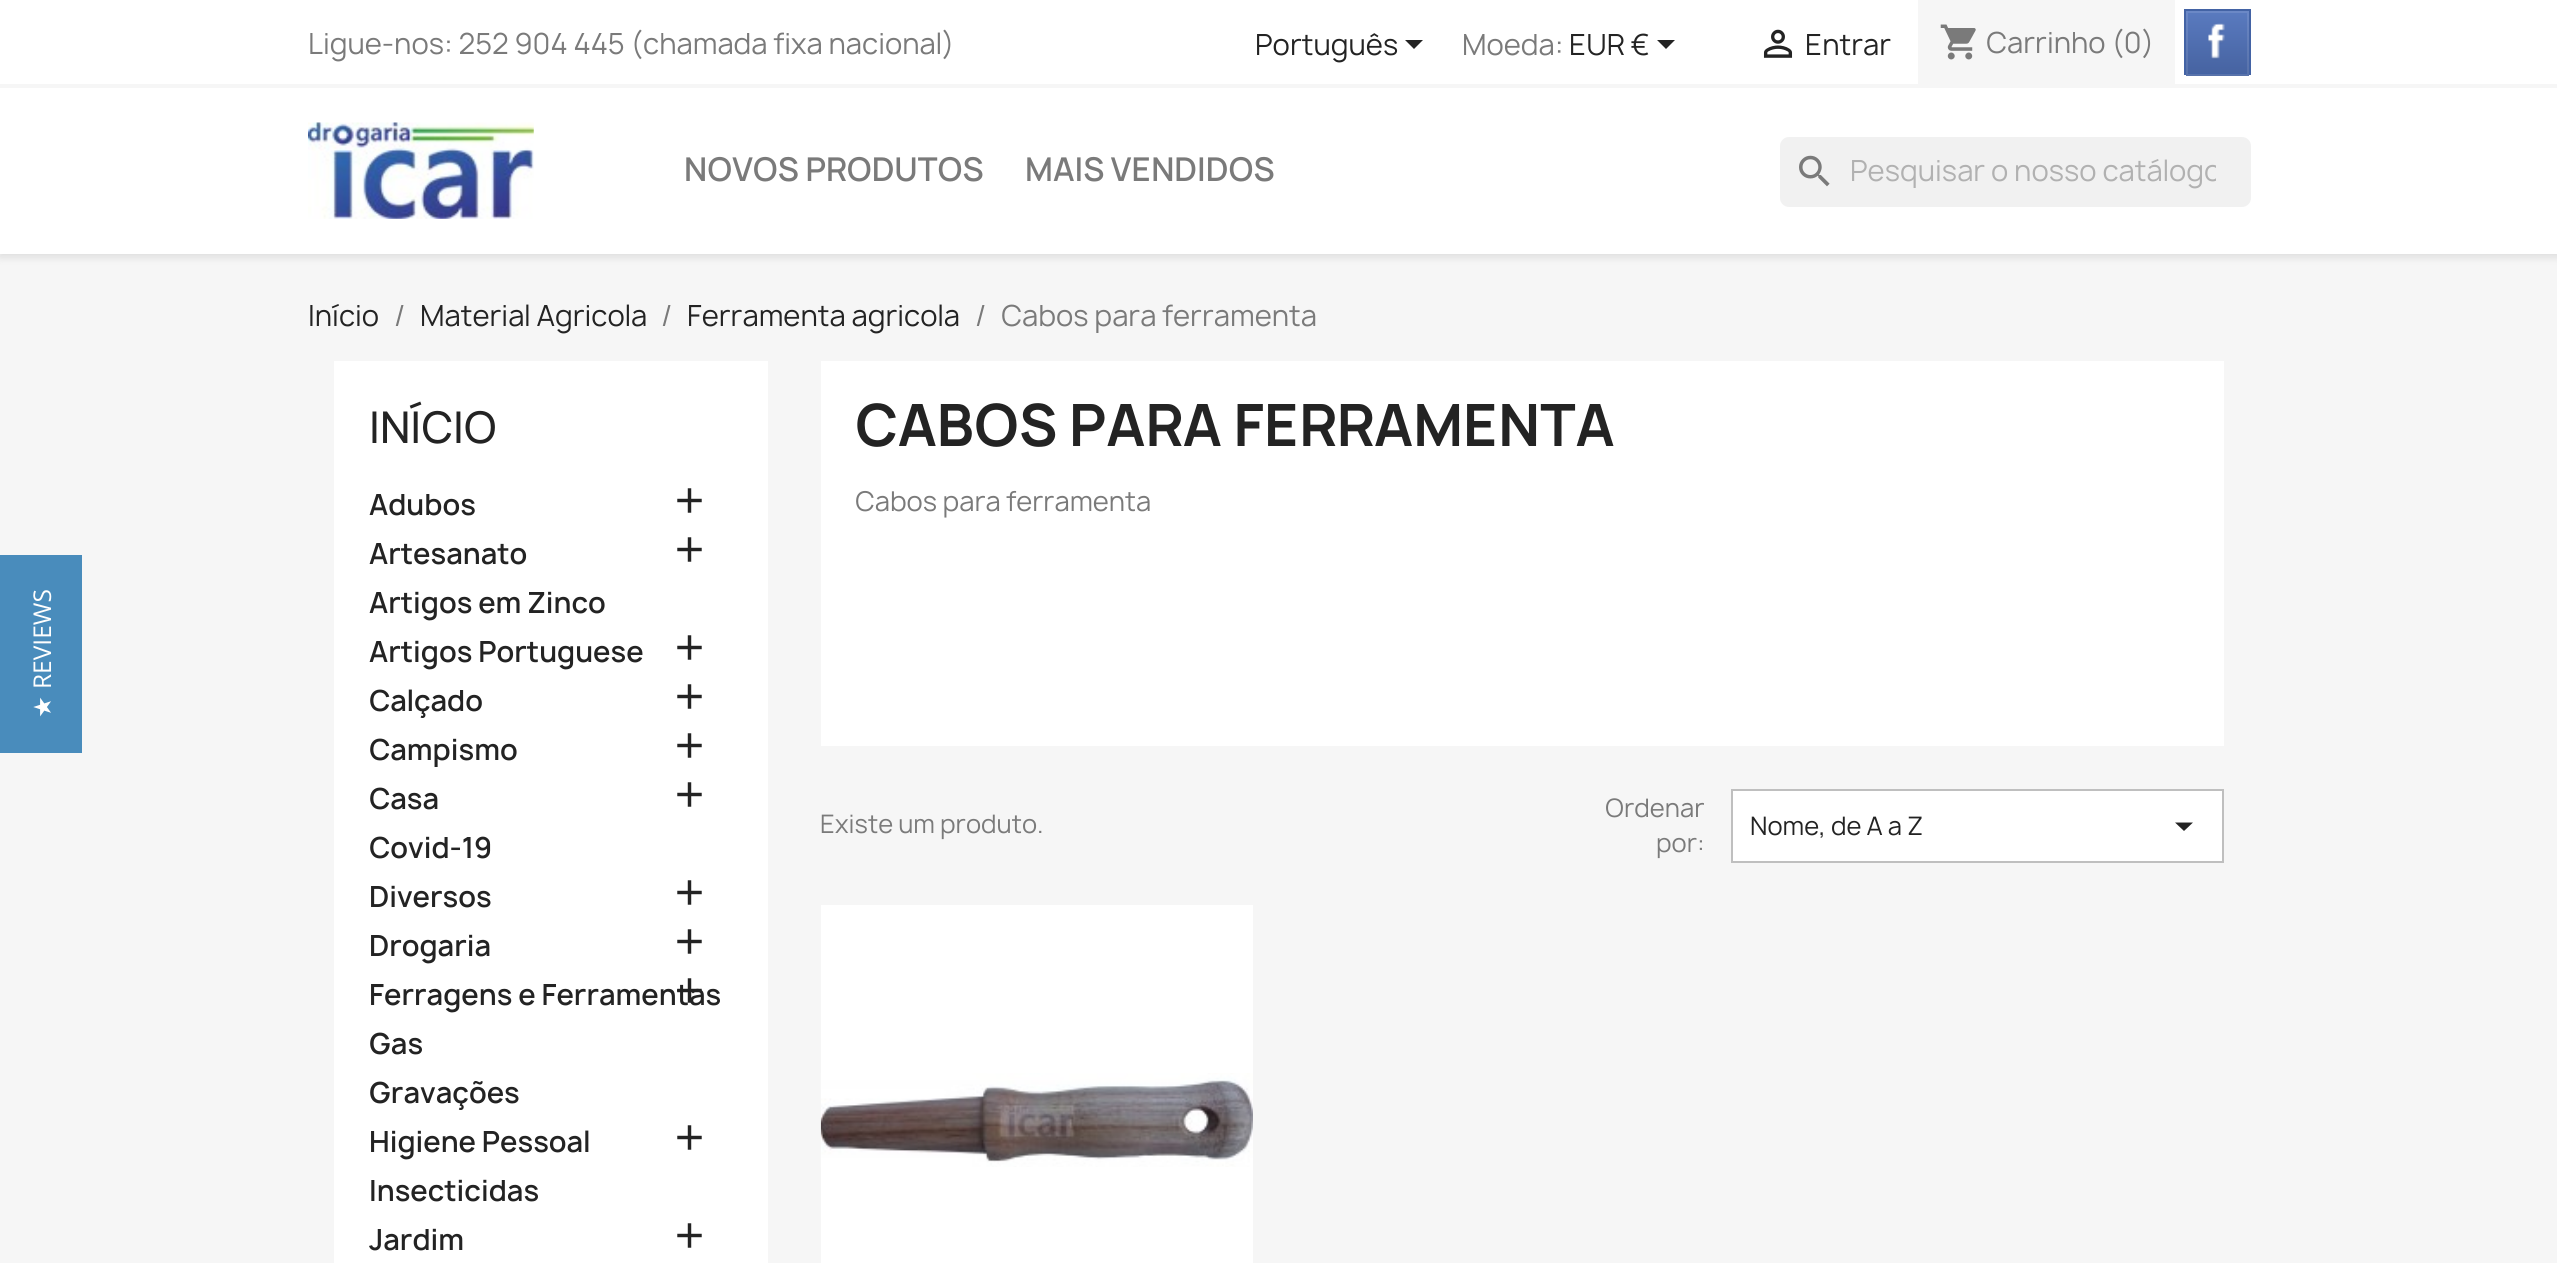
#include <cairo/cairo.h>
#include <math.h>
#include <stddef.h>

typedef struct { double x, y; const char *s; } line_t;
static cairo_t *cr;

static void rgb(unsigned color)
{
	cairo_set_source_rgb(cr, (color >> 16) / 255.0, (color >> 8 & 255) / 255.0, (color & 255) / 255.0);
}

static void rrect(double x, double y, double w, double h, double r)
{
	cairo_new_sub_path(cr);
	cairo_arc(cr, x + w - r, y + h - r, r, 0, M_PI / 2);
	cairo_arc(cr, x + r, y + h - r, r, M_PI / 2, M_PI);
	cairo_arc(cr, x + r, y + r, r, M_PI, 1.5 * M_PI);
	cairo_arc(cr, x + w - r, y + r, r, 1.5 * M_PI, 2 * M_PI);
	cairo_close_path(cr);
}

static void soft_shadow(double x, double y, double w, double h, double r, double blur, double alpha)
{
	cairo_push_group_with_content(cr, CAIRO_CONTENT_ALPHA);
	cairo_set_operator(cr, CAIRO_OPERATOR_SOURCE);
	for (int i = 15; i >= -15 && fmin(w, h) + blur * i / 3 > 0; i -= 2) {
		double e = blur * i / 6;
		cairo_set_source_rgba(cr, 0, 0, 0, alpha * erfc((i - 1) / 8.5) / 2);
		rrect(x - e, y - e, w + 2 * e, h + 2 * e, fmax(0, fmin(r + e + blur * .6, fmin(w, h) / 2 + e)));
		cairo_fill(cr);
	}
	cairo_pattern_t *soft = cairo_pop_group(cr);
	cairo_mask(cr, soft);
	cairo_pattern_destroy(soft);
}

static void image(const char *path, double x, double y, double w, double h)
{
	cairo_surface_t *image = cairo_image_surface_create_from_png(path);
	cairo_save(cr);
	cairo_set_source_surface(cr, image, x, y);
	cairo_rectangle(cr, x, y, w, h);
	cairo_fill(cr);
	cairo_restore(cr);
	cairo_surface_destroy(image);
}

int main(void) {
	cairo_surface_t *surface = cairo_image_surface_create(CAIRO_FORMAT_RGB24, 2557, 1263);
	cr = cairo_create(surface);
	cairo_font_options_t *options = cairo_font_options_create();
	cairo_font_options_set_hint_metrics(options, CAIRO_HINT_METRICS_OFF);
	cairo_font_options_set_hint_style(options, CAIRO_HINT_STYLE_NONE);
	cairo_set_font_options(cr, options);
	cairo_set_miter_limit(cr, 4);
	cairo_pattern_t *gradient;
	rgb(0xf6f6f6);
	cairo_paint(cr);
	rgb(0x498cbc);
	cairo_rectangle(cr, 0, 555, 82, 198);
	cairo_fill(cr);
	rgb(0x000000);
	soft_shadow(0, 4, 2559, 253, 0, 4.5, 0.11);
	rgb(0xffffff);
	cairo_rectangle(cr, 0, 0, 2557, 254);
	cairo_fill(cr);
	rgb(0xf6f6f6);
	cairo_rectangle(cr, 0, 84, 2557, 4);
	cairo_fill(cr);
	rgb(0x232323);
	cairo_new_path(cr);
	cairo_move_to(cr, 1405, 40);
	cairo_line_to(cr, 1423, 40);
	cairo_line_to(cr, 1414, 49);
	cairo_close_path(cr);
	cairo_fill(cr);
	cairo_new_path(cr);
	cairo_move_to(cr, 1657, 40);
	cairo_line_to(cr, 1675, 40);
	cairo_line_to(cr, 1666, 49);
	cairo_close_path(cr);
	cairo_fill(cr);
	image("img/1.png", 1763, 29, 30, 29);
	rgb(0xf6f6f6);
	cairo_rectangle(cr, 1918, 0, 257, 84);
	cairo_fill(cr);
	image("img/2.png", 1940, 24, 36, 36);
	gradient = cairo_pattern_create_linear(2217, 10, 2217, 74);
	cairo_pattern_add_color_stop_rgba(gradient, 0, 0.353, 0.482, 0.753, 1);
	cairo_pattern_add_color_stop_rgba(gradient, 1, 0.275, 0.388, 0.631, 1);
	cairo_set_source(cr, gradient);
	cairo_pattern_destroy(gradient);
	cairo_rectangle(cr, 2188, 13, 59, 60);
	cairo_fill(cr);
	cairo_rectangle(cr, 2185, 10, 65, 64);
	rgb(0x4363a5);
	cairo_stroke(cr);
	gradient = cairo_pattern_create_linear(2248, 12, 2248, 74);
	cairo_pattern_add_color_stop_rgba(gradient, 0, 0.42, 0.533, 0.776, 1);
	cairo_pattern_add_color_stop_rgba(gradient, 1, 0.345, 0.447, 0.667, 1);
	cairo_set_source(cr, gradient);
	cairo_pattern_destroy(gradient);
	cairo_rectangle(cr, 2247, 12, 2, 62);
	cairo_fill(cr);
	gradient = cairo_pattern_create_linear(2187, 12, 2187, 74);
	cairo_pattern_add_color_stop_rgba(gradient, 0, 0.42, 0.533, 0.776, 1);
	cairo_pattern_add_color_stop_rgba(gradient, 1, 0.345, 0.447, 0.667, 1);
	cairo_set_source(cr, gradient);
	cairo_pattern_destroy(gradient);
	cairo_rectangle(cr, 2186, 12, 2, 62);
	cairo_fill(cr);
	rgb(0x6b88c6);
	cairo_rectangle(cr, 2186, 11, 63, 2);
	cairo_fill(cr);
	rgb(0x5872aa);
	cairo_rectangle(cr, 2186, 74, 63, 2);
	cairo_fill(cr);
	image("img/3.png", 2208, 23, 17, 37);
	image("img/4.png", 308, 122, 226, 97);
	rgb(0xf1f1f1);
	rrect(1780, 137, 471, 70, 9);
	cairo_fill(cr);
	image("img/5.png", 1799, 155, 31, 32);
	rgb(0xffffff);
	cairo_rectangle(cr, 334, 361, 434, 902);
	cairo_fill(cr);
	image("img/6.png", 677, 488, 25, 25);
	image("img/6.png", 677, 537, 25, 25);
	image("img/6.png", 677, 635, 25, 25);
	image("img/6.png", 677, 684, 25, 25);
	image("img/6.png", 677, 733, 25, 25);
	image("img/6.png", 677, 782, 25, 25);
	image("img/6.png", 677, 880, 25, 25);
	image("img/6.png", 677, 929, 25, 25);
	image("img/6.png", 677, 1125, 25, 25);
	image("img/6.png", 677, 1223, 25, 25);
	cairo_rectangle(cr, 821, 361, 1403, 385);
	cairo_fill(cr);
	cairo_rectangle(cr, 1732, 790, 491, 72);
	cairo_fill_preserve(cr);
	rgb(0xbfbfbf);
	cairo_stroke(cr);
	rgb(0x232323);
	cairo_new_path(cr);
	cairo_move_to(cr, 2175, 822.5);
	cairo_line_to(cr, 2193, 822.5);
	cairo_line_to(cr, 2184, 831);
	cairo_close_path(cr);
	cairo_fill(cr);
	rgb(0xffffff);
	cairo_rectangle(cr, 821, 905, 432, 358);
	cairo_fill(cr);
	image("img/8.png", 820, 1073, 433, 94);
	cairo_select_font_face(cr, "Open Sans", CAIRO_FONT_SLANT_NORMAL, CAIRO_FONT_WEIGHT_NORMAL);
	cairo_set_font_size(cr, 24.5);
	rgb(0xfefefe);
	cairo_save(cr);
	cairo_translate(cr, 51, 689);
	cairo_rotate(cr, -90 * M_PI / 180);
	cairo_move_to(cr, 0, 0);
	cairo_show_text(cr, "REVIEWS");
	cairo_restore(cr);
	cairo_select_font_face(cr, "DejaVu Sans", CAIRO_FONT_SLANT_NORMAL, CAIRO_FONT_WEIGHT_NORMAL);
	cairo_save(cr);
	cairo_translate(cr, 51, 718);
	cairo_rotate(cr, -90 * M_PI / 180);
	cairo_move_to(cr, 0, 0);
	cairo_show_text(cr, "★");
	cairo_restore(cr);
	cairo_select_font_face(cr, "Manrope", CAIRO_FONT_SLANT_NORMAL, CAIRO_FONT_WEIGHT_NORMAL);
	cairo_set_font_size(cr, 28);
	rgb(0x7a7a7a);
	cairo_move_to(cr, 308, 54);
	cairo_show_text(cr, "Ligue-nos: 252 904 445 (chamada fixa nacional)");
	rgb(0x232323);
	cairo_move_to(cr, 1255, 55);
	cairo_show_text(cr, "Português");
	rgb(0x7a7a7a);
	cairo_move_to(cr, 1462, 55);
	cairo_show_text(cr, "Moeda:");
	rgb(0x232323);
	cairo_move_to(cr, 1569, 55);
	cairo_show_text(cr, "EUR €");
	cairo_move_to(cr, 1805, 55);
	cairo_show_text(cr, "Entrar");
	rgb(0x7a7a7a);
	cairo_move_to(cr, 1986, 53);
	cairo_show_text(cr, "Carrinho (0)");
	cairo_select_font_face(cr, "Manrope SemiBold", CAIRO_FONT_SLANT_NORMAL, CAIRO_FONT_WEIGHT_NORMAL);
	cairo_set_font_size(cr, 31.5);
	cairo_move_to(cr, 684, 181);
	cairo_show_text(cr, "NOVOS PRODUTOS");
	cairo_move_to(cr, 1025, 181);
	cairo_show_text(cr, "MAIS VENDIDOS");
	cairo_save(cr);
	cairo_rectangle(cr, 1850, 149, 366, 47);
	cairo_clip(cr);
	cairo_select_font_face(cr, "Manrope", CAIRO_FONT_SLANT_NORMAL, CAIRO_FONT_WEIGHT_NORMAL);
	cairo_set_font_size(cr, 28);
	rgb(0xb1b1b1);
	cairo_move_to(cr, 1850, 181);
	cairo_show_text(cr, "Pesquisar o nosso catálogo");
	cairo_restore(cr);
	cairo_select_font_face(cr, "Manrope", CAIRO_FONT_SLANT_NORMAL, CAIRO_FONT_WEIGHT_NORMAL);
	cairo_set_font_size(cr, 28);
	rgb(0x232323);
	cairo_move_to(cr, 308, 326);
	cairo_show_text(cr, "Início");
	rgb(0x7a7a7a);
	cairo_move_to(cr, 394, 326);
	cairo_show_text(cr, "/");
	rgb(0x232323);
	cairo_move_to(cr, 420, 326);
	cairo_show_text(cr, "Material Agricola");
	rgb(0x7a7a7a);
	cairo_move_to(cr, 661, 326);
	cairo_show_text(cr, "/");
	rgb(0x232323);
	cairo_move_to(cr, 687, 326);
	cairo_show_text(cr, "Ferramenta agricola");
	rgb(0x7a7a7a);
	cairo_move_to(cr, 975, 326);
	cairo_show_text(cr, "/");
	cairo_move_to(cr, 1001, 326);
	cairo_show_text(cr, "Cabos para ferramenta");
	cairo_select_font_face(cr, "Manrope Medium", CAIRO_FONT_SLANT_NORMAL, CAIRO_FONT_WEIGHT_NORMAL);
	cairo_set_font_size(cr, 42);
	rgb(0x232323);
	cairo_move_to(cr, 369, 443);
	cairo_show_text(cr, "INÍCIO");
	cairo_select_font_face(cr, "Manrope SemiBold", CAIRO_FONT_SLANT_NORMAL, CAIRO_FONT_WEIGHT_NORMAL);
	cairo_set_font_size(cr, 28);
	{
		static const line_t items[] = {
			{369, 515, "Adubos"},
			{369, 564, "Artesanato"},
			{369, 613, "Artigos em Zinco"},
			{369, 662, "Artigos Portuguese"},
			{369, 711, "Calçado"},
			{369, 760, "Campismo"},
			{369, 809, "Casa"},
			{369, 858, "Covid-19"},
			{369, 907, "Diversos"},
			{369, 956, "Drogaria"},
			{369, 1005, "Ferragens e Ferramentas"},
		};
		for (size_t i = 0; i < sizeof items / sizeof *items; i++) {
			cairo_move_to(cr, items[i].x, items[i].y);
			cairo_show_text(cr, items[i].s);
		}
	}
	image("img/7.png", 677, 978, 25, 25);
	{
		static const line_t items[] = {
			{369, 1054, "Gas"},
			{369, 1103, "Gravações"},
			{369, 1152, "Higiene Pessoal"},
			{369, 1201, "Insecticidas"},
			{369, 1250, "Jardim"},
		};
		for (size_t i = 0; i < sizeof items / sizeof *items; i++) {
			cairo_move_to(cr, items[i].x, items[i].y);
			cairo_show_text(cr, items[i].s);
		}
	}
	cairo_select_font_face(cr, "Manrope", CAIRO_FONT_SLANT_NORMAL, CAIRO_FONT_WEIGHT_BOLD);
	cairo_set_font_size(cr, 56);
	cairo_move_to(cr, 855, 446);
	cairo_show_text(cr, "CABOS PARA FERRAMENTA");
	cairo_select_font_face(cr, "Manrope", CAIRO_FONT_SLANT_NORMAL, CAIRO_FONT_WEIGHT_NORMAL);
	cairo_set_font_size(cr, 26.25);
	rgb(0x7a7a7a);
	cairo_move_to(cr, 855, 511);
	cairo_show_text(cr, "Cabos para ferramenta");
	cairo_set_font_size(cr, 24.5);
	{
		static const line_t items[] = {
			{820, 833, "Existe um produto."},
			{1605, 817, "Ordenar"},
			{1656, 852, "por:"},
		};
		for (size_t i = 0; i < sizeof items / sizeof *items; i++) {
			cairo_move_to(cr, items[i].x, items[i].y);
			cairo_show_text(cr, items[i].s);
		}
	}
	rgb(0x232323);
	cairo_move_to(cr, 1750, 835);
	cairo_show_text(cr, "Nome, de A a Z");
	cairo_surface_write_to_png(surface, "page.png");
	cairo_font_options_destroy(options);
	cairo_destroy(cr);
	cairo_surface_destroy(surface);
	return 0;
}
